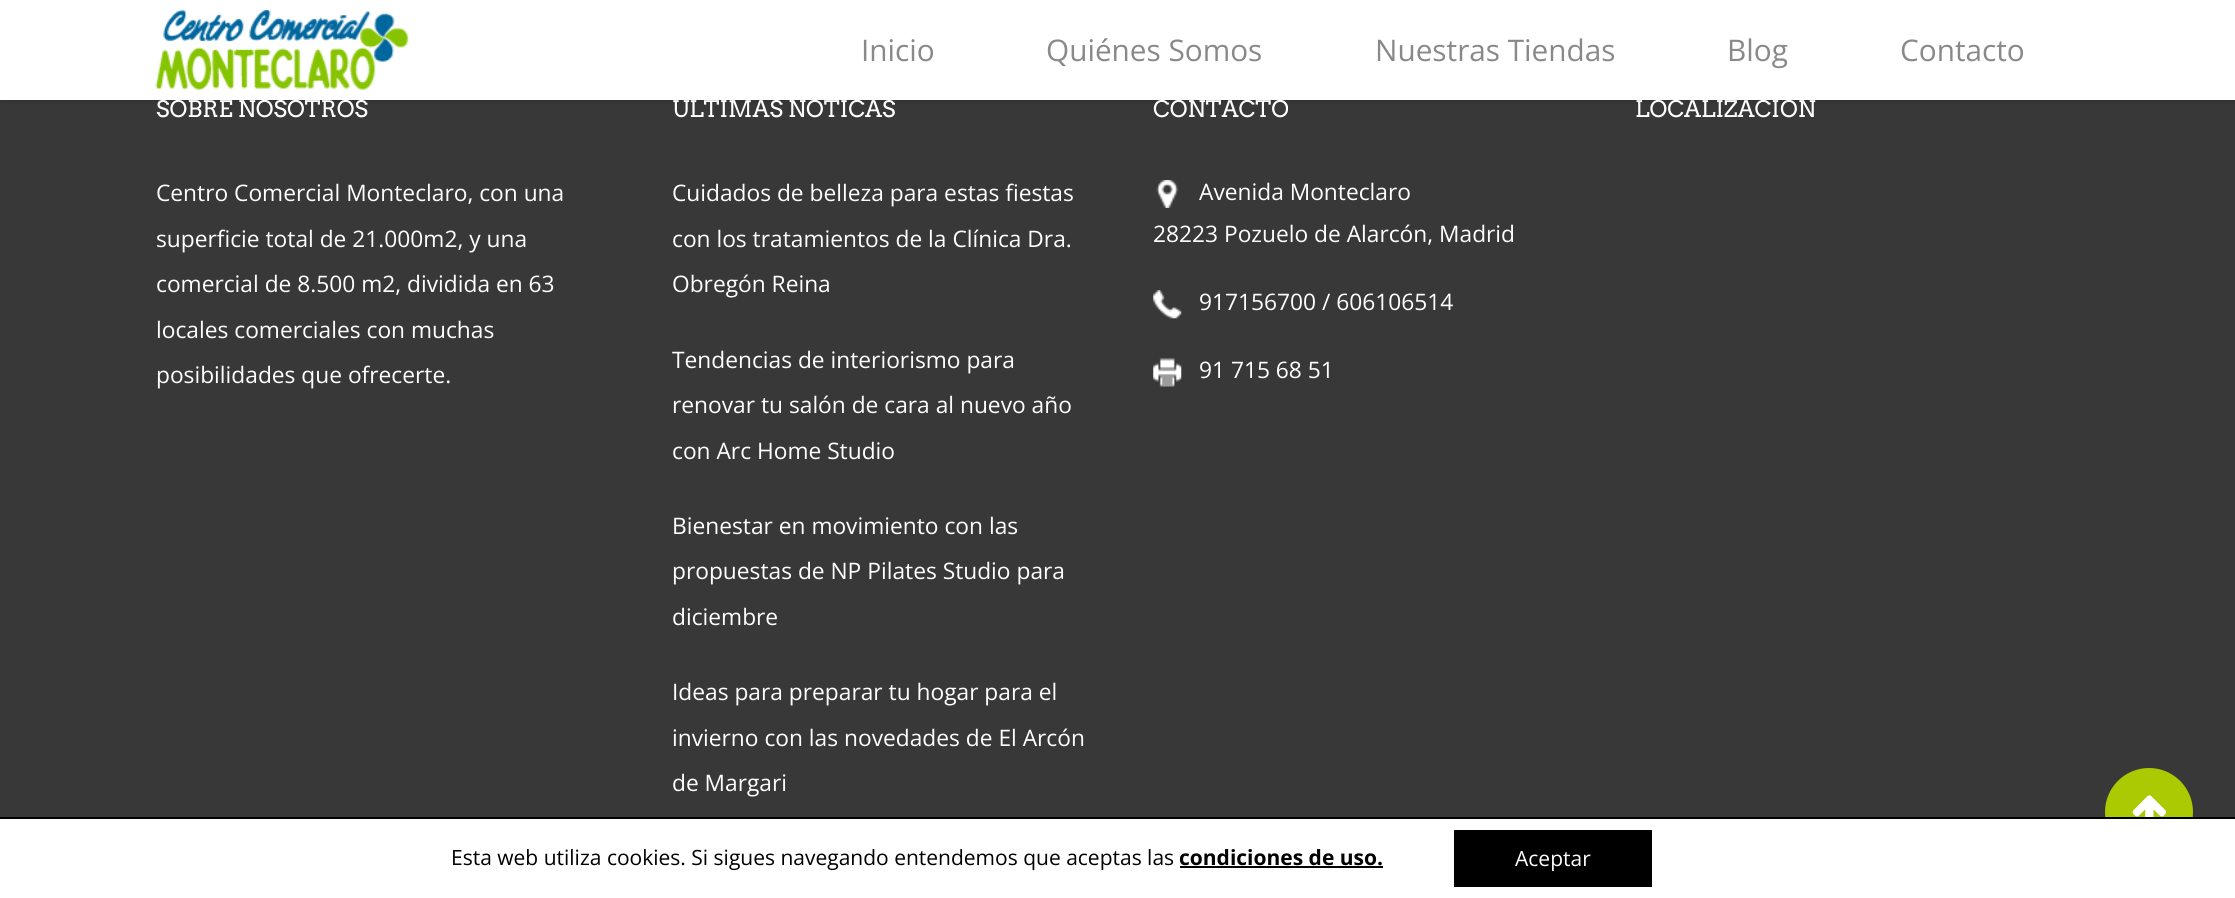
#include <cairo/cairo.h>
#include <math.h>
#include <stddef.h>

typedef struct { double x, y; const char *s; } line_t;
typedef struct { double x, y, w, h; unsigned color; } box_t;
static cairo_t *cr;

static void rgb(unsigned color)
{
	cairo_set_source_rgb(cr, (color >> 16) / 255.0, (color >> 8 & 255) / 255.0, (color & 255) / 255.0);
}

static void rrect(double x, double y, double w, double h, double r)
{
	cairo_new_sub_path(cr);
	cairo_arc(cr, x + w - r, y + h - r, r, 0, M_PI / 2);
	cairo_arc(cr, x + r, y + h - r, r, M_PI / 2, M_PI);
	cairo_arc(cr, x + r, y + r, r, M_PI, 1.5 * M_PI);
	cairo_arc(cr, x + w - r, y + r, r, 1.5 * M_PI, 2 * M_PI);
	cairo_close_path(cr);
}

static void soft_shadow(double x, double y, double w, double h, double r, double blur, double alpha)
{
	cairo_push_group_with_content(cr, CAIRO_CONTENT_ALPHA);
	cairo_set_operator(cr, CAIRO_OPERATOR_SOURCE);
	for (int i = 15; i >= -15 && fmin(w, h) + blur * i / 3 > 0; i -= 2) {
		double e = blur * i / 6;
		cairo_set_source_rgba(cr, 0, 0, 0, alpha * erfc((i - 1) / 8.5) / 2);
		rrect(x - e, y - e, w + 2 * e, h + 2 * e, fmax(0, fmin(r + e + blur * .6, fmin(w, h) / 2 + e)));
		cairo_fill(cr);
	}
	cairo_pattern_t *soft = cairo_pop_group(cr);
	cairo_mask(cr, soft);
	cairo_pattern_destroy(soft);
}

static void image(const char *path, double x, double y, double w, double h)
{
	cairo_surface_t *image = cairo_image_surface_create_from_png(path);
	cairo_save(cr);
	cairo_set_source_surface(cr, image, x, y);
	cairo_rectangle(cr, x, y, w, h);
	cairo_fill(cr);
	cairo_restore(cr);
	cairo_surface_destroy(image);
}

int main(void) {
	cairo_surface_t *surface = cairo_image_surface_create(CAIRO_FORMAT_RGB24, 2235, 898);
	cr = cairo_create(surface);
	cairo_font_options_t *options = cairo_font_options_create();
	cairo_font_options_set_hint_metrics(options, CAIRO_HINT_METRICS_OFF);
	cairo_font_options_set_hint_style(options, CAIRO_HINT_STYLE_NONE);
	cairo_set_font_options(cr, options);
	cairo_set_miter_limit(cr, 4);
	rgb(0x383838);
	cairo_paint(cr);
	rgb(0x000000);
	soft_shadow(0, 2, 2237, 100, 0, 2.5, 0.11);
	rgb(0xffffff);
	cairo_rectangle(cr, 0, 0, 2235, 100);
	cairo_fill(cr);
	image("img/1.png", 155, 9, 254, 81);
	image("img/2.png", 1156, 180, 23, 28);
	image("img/3.png", 1153, 290, 29, 29);
	image("img/4.png", 1153, 358, 29, 29);
	rgb(0xabca02);
	cairo_arc(cr, 2149, 812, 44, 0, 2 * M_PI);
	cairo_fill(cr);
	image("img/5.png", 2132, 795, 35, 22);
	{
		static const box_t items[] = {
			{0, 819, 2235, 79, 0xffffff},
			{0, 817, 2235, 2, 0x000000},
			{1180, 866, 203, 2, 0x000000},
			{1454, 830, 198, 57, 0x000000},
		};
		for (size_t i = 0; i < sizeof items / sizeof *items; i++) {
			rgb(items[i].color);
			cairo_rectangle(cr, items[i].x, items[i].y, items[i].w, items[i].h);
			cairo_fill(cr);
		}
	}
	cairo_select_font_face(cr, "Open Sans", CAIRO_FONT_SLANT_NORMAL, CAIRO_FONT_WEIGHT_NORMAL);
	cairo_set_font_size(cr, 29.75);
	rgb(0x898989);
	{
		static const line_t items[] = {
			{861, 61, "Inicio"},
			{1046, 61, "Quiénes Somos"},
			{1375, 61, "Nuestras Tiendas"},
			{1727, 61, "Blog"},
			{1900, 61, "Contacto"},
		};
		for (size_t i = 0; i < sizeof items / sizeof *items; i++) {
			cairo_move_to(cr, items[i].x, items[i].y);
			cairo_show_text(cr, items[i].s);
		}
	}
	cairo_select_font_face(cr, "Arvo", CAIRO_FONT_SLANT_NORMAL, CAIRO_FONT_WEIGHT_NORMAL);
	cairo_set_font_size(cr, 22.75);
	rgb(0xffffff);
	cairo_move_to(cr, 156, 117);
	cairo_show_text(cr, "SOBRE NOSOTROS");
	cairo_select_font_face(cr, "Open Sans", CAIRO_FONT_SLANT_NORMAL, CAIRO_FONT_WEIGHT_NORMAL);
	{
		static const line_t items[] = {
			{156, 201, "Centro Comercial Monteclaro, con una"},
			{156, 247, "superficie total de 21.000m2, y una"},
			{156, 292, "comercial de 8.500 m2, dividida en 63"},
			{156, 338, "locales comerciales con muchas"},
			{156, 383, "posibilidades que ofrecerte."},
		};
		for (size_t i = 0; i < sizeof items / sizeof *items; i++) {
			cairo_move_to(cr, items[i].x, items[i].y);
			cairo_show_text(cr, items[i].s);
		}
	}
	cairo_select_font_face(cr, "Arvo", CAIRO_FONT_SLANT_NORMAL, CAIRO_FONT_WEIGHT_NORMAL);
	cairo_move_to(cr, 672, 117);
	cairo_show_text(cr, "ÚLTIMAS NOTICAS");
	cairo_select_font_face(cr, "Open Sans", CAIRO_FONT_SLANT_NORMAL, CAIRO_FONT_WEIGHT_NORMAL);
	{
		static const line_t items[] = {
			{672, 201, "Cuidados de belleza para estas fiestas"},
			{672, 247, "con los tratamientos de la Clínica Dra."},
			{672, 292, "Obregón Reina"},
			{672, 368, "Tendencias de interiorismo para"},
			{672, 413, "renovar tu salón de cara al nuevo año"},
			{672, 459, "con Arc Home Studio"},
			{672, 534, "Bienestar en movimiento con las"},
			{672, 579, "propuestas de NP Pilates Studio para"},
			{672, 625, "diciembre"},
			{672, 700, "Ideas para preparar tu hogar para el"},
			{672, 746, "invierno con las novedades de El Arcón"},
			{672, 791, "de Margari"},
		};
		for (size_t i = 0; i < sizeof items / sizeof *items; i++) {
			cairo_move_to(cr, items[i].x, items[i].y);
			cairo_show_text(cr, items[i].s);
		}
	}
	cairo_select_font_face(cr, "Arvo", CAIRO_FONT_SLANT_NORMAL, CAIRO_FONT_WEIGHT_NORMAL);
	cairo_move_to(cr, 1153, 117);
	cairo_show_text(cr, "CONTACTO");
	cairo_select_font_face(cr, "Open Sans", CAIRO_FONT_SLANT_NORMAL, CAIRO_FONT_WEIGHT_NORMAL);
	{
		static const line_t items[] = {
			{1199, 200, "Avenida Monteclaro"},
			{1153, 242, "28223 Pozuelo de Alarcón, Madrid"},
			{1199, 310, "917156700 / 606106514"},
			{1199, 378, "91 715 68 51"},
		};
		for (size_t i = 0; i < sizeof items / sizeof *items; i++) {
			cairo_move_to(cr, items[i].x, items[i].y);
			cairo_show_text(cr, items[i].s);
		}
	}
	cairo_select_font_face(cr, "Arvo", CAIRO_FONT_SLANT_NORMAL, CAIRO_FONT_WEIGHT_NORMAL);
	cairo_move_to(cr, 1635, 117);
	cairo_show_text(cr, "LOCALIZACIÓN");
	cairo_select_font_face(cr, "Open Sans", CAIRO_FONT_SLANT_NORMAL, CAIRO_FONT_WEIGHT_NORMAL);
	cairo_set_font_size(cr, 21);
	rgb(0x000000);
	cairo_move_to(cr, 451, 865);
	cairo_show_text(cr, "Esta web utiliza cookies. Si sigues navegando entendemos que aceptas las");
	cairo_select_font_face(cr, "Open Sans", CAIRO_FONT_SLANT_NORMAL, CAIRO_FONT_WEIGHT_BOLD);
	cairo_move_to(cr, 1179, 865);
	cairo_show_text(cr, "condiciones de uso.");
	cairo_select_font_face(cr, "Open Sans", CAIRO_FONT_SLANT_NORMAL, CAIRO_FONT_WEIGHT_NORMAL);
	rgb(0xffffff);
	cairo_move_to(cr, 1515, 866);
	cairo_show_text(cr, "Aceptar");
	cairo_surface_write_to_png(surface, "page.png");
	cairo_font_options_destroy(options);
	cairo_destroy(cr);
	cairo_surface_destroy(surface);
	return 0;
}
